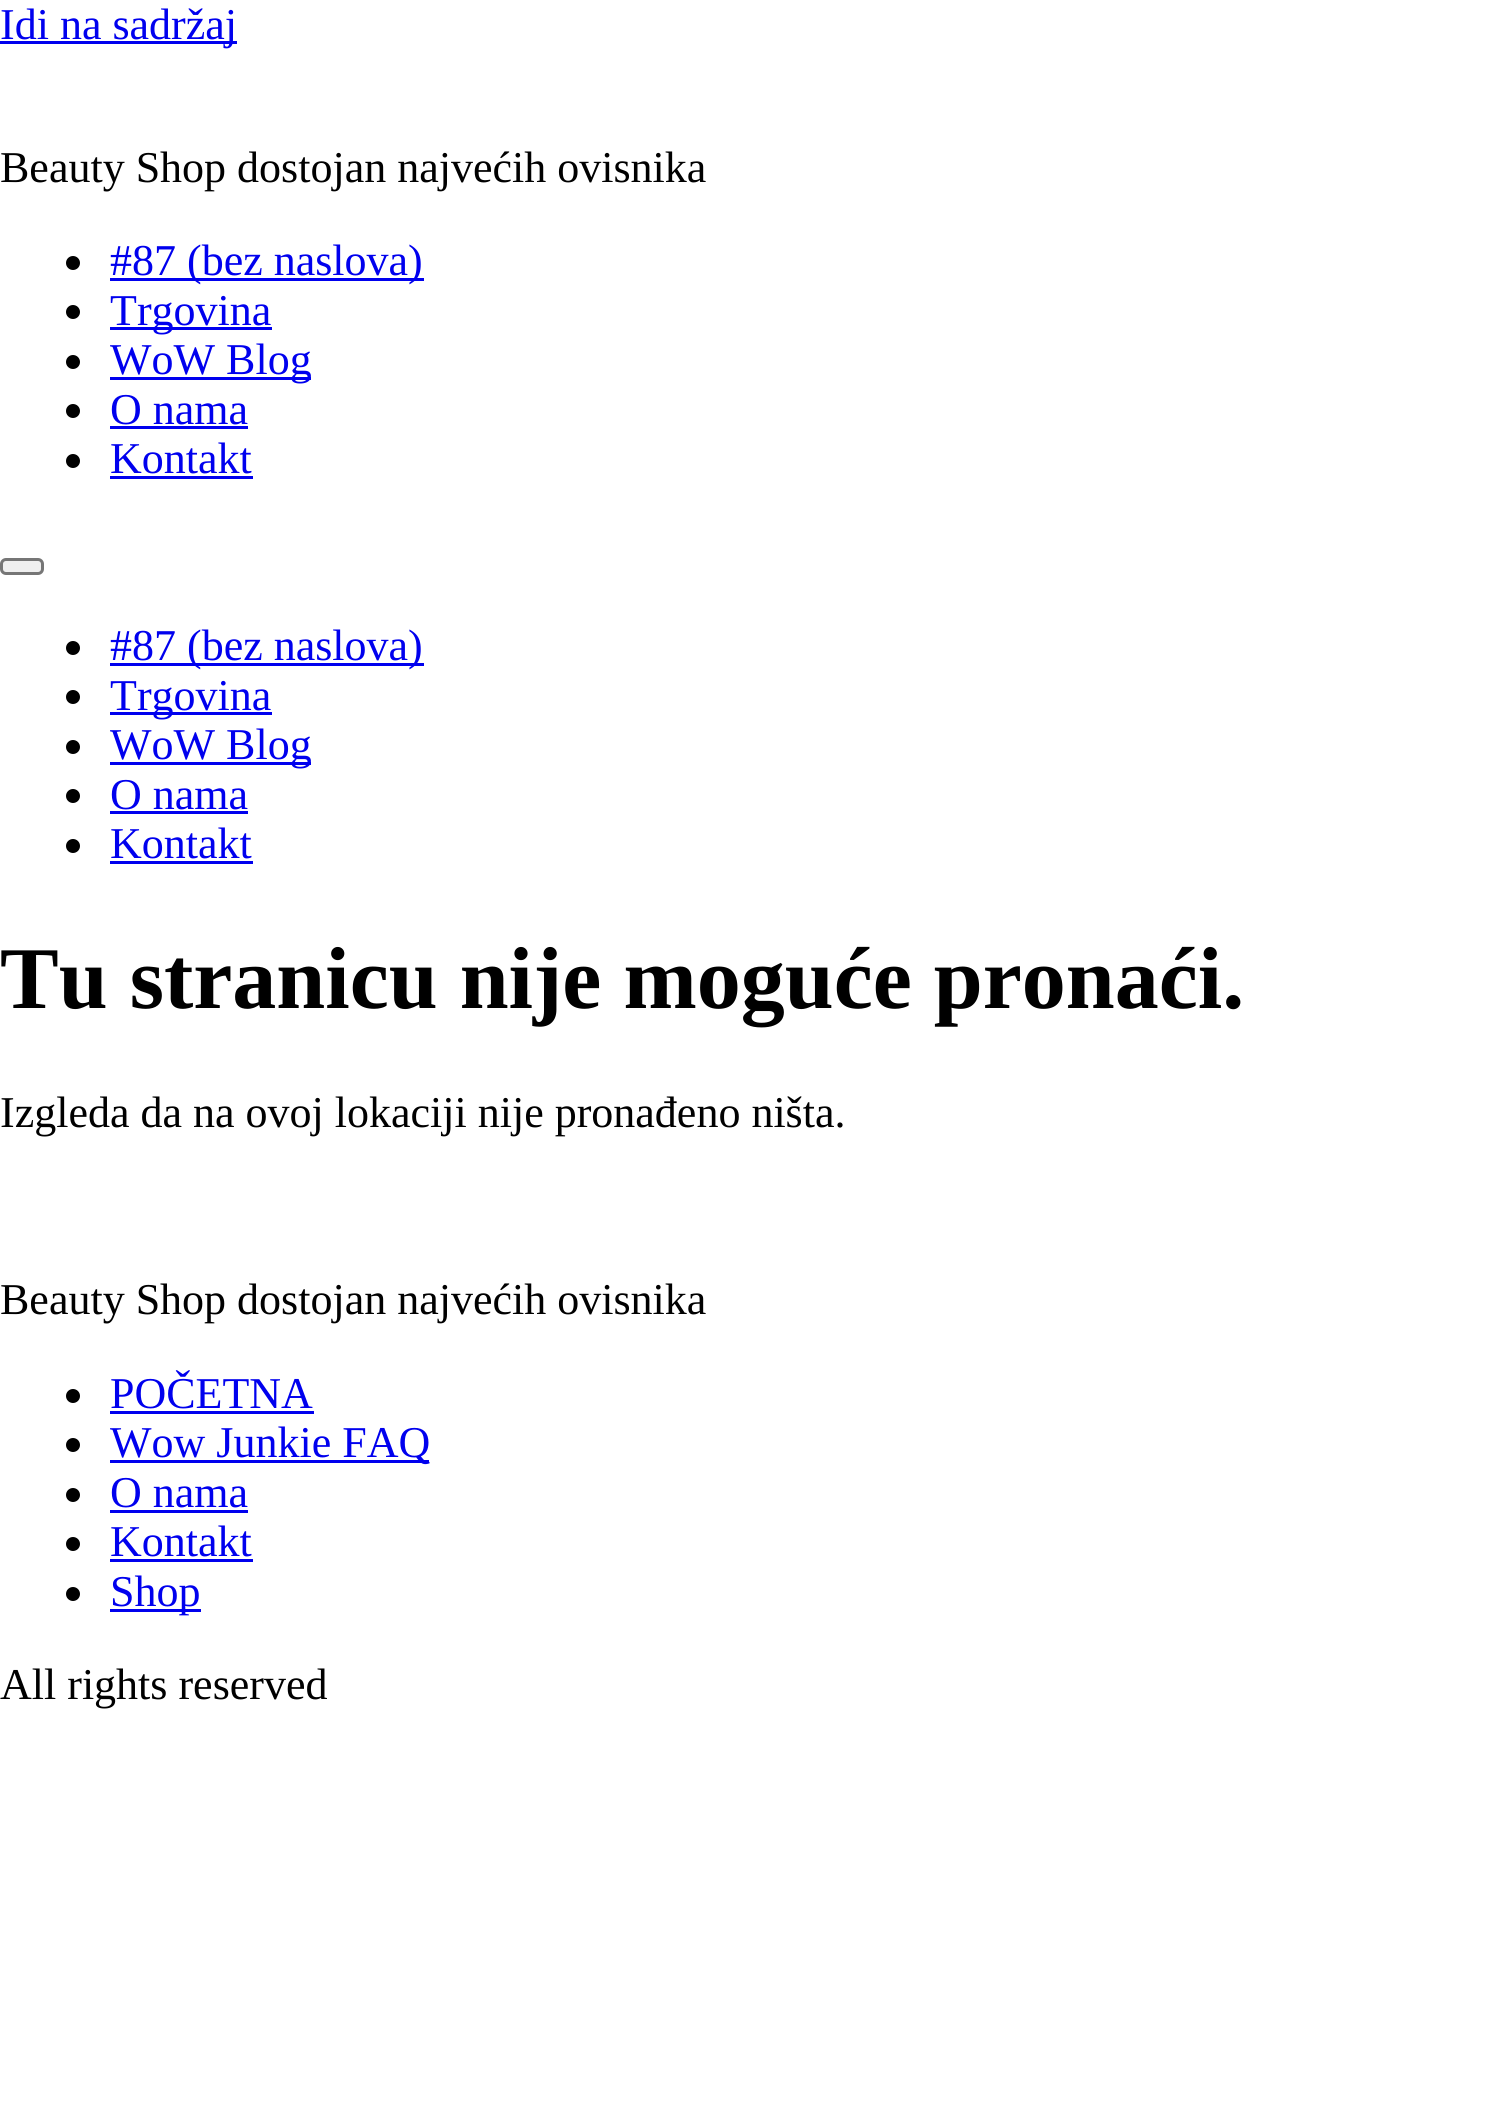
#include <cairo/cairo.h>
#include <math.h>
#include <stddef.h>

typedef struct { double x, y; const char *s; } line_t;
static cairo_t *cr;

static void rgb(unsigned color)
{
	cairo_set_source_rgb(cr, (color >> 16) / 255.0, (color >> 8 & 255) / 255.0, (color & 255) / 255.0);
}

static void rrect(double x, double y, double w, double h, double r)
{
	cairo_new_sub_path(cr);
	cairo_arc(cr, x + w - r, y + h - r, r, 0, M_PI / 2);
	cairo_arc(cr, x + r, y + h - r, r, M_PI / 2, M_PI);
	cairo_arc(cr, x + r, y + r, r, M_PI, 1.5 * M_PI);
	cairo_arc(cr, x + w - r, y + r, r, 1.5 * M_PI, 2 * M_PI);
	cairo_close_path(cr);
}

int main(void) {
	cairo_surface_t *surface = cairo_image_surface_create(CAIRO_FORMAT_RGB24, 1486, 2127);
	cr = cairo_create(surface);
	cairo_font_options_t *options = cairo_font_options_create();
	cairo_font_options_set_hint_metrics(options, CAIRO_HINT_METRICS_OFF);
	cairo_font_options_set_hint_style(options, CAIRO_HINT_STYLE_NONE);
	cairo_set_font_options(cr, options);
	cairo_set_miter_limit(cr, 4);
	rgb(0xffffff);
	cairo_paint(cr);
	rgb(0x0000ee);
	cairo_rectangle(cr, 0, 41, 237, 3);
	cairo_fill(cr);
	rgb(0x000000);
	cairo_arc(cr, 73, 263, 7, 0, 2 * M_PI);
	cairo_fill(cr);
	rgb(0x0000ee);
	cairo_rectangle(cr, 110, 278, 314, 3);
	cairo_fill(cr);
	rgb(0x000000);
	cairo_arc(cr, 73, 312, 7, 0, 2 * M_PI);
	cairo_fill(cr);
	rgb(0x0000ee);
	cairo_rectangle(cr, 110, 327, 162, 3);
	cairo_fill(cr);
	rgb(0x000000);
	cairo_arc(cr, 73, 362, 7, 0, 2 * M_PI);
	cairo_fill(cr);
	rgb(0x0000ee);
	cairo_rectangle(cr, 110, 377, 201, 3);
	cairo_fill(cr);
	rgb(0x000000);
	cairo_arc(cr, 73, 411, 7, 0, 2 * M_PI);
	cairo_fill(cr);
	rgb(0x0000ee);
	cairo_rectangle(cr, 110, 426, 138, 3);
	cairo_fill(cr);
	rgb(0x000000);
	cairo_arc(cr, 73, 461, 7, 0, 2 * M_PI);
	cairo_fill(cr);
	rgb(0x0000ee);
	cairo_rectangle(cr, 110, 476, 143, 3);
	cairo_fill(cr);
	rgb(0xefefef);
	rrect(1.5, 559.5, 41, 14, 4.5);
	cairo_fill_preserve(cr);
	rgb(0x767676);
	cairo_set_line_width(cr, 3);
	cairo_stroke(cr);
	rgb(0x000000);
	cairo_arc(cr, 73, 648, 7, 0, 2 * M_PI);
	cairo_fill(cr);
	rgb(0x0000ee);
	cairo_rectangle(cr, 110, 663, 314, 3);
	cairo_fill(cr);
	rgb(0x000000);
	cairo_arc(cr, 73, 697, 7, 0, 2 * M_PI);
	cairo_fill(cr);
	rgb(0x0000ee);
	cairo_rectangle(cr, 110, 712, 162, 3);
	cairo_fill(cr);
	rgb(0x000000);
	cairo_arc(cr, 73, 747, 7, 0, 2 * M_PI);
	cairo_fill(cr);
	rgb(0x0000ee);
	cairo_rectangle(cr, 110, 762, 201, 3);
	cairo_fill(cr);
	rgb(0x000000);
	cairo_arc(cr, 73, 796, 7, 0, 2 * M_PI);
	cairo_fill(cr);
	rgb(0x0000ee);
	cairo_rectangle(cr, 110, 811, 138, 3);
	cairo_fill(cr);
	rgb(0x000000);
	cairo_arc(cr, 73, 846, 7, 0, 2 * M_PI);
	cairo_fill(cr);
	rgb(0x0000ee);
	cairo_rectangle(cr, 110, 861, 143, 3);
	cairo_fill(cr);
	rgb(0x000000);
	cairo_arc(cr, 73, 1396, 7, 0, 2 * M_PI);
	cairo_fill(cr);
	rgb(0x0000ee);
	cairo_rectangle(cr, 110, 1411, 204, 3);
	cairo_fill(cr);
	rgb(0x000000);
	cairo_arc(cr, 73, 1445, 7, 0, 2 * M_PI);
	cairo_fill(cr);
	rgb(0x0000ee);
	cairo_rectangle(cr, 110, 1460, 319, 3);
	cairo_fill(cr);
	rgb(0x000000);
	cairo_arc(cr, 73, 1495, 7, 0, 2 * M_PI);
	cairo_fill(cr);
	rgb(0x0000ee);
	cairo_rectangle(cr, 110, 1510, 138, 3);
	cairo_fill(cr);
	rgb(0x000000);
	cairo_arc(cr, 73, 1544, 7, 0, 2 * M_PI);
	cairo_fill(cr);
	rgb(0x0000ee);
	cairo_rectangle(cr, 110, 1559, 143, 3);
	cairo_fill(cr);
	rgb(0x000000);
	cairo_arc(cr, 73, 1594, 7, 0, 2 * M_PI);
	cairo_fill(cr);
	rgb(0x0000ee);
	cairo_rectangle(cr, 110, 1609, 91, 3);
	cairo_fill(cr);
	cairo_select_font_face(cr, "Liberation Serif", CAIRO_FONT_SLANT_NORMAL, CAIRO_FONT_WEIGHT_NORMAL);
	cairo_set_font_size(cr, 44);
	cairo_move_to(cr, 0, 39);
	cairo_show_text(cr, "Idi na sadržaj");
	rgb(0x000000);
	cairo_move_to(cr, 0, 182);
	cairo_show_text(cr, "Beauty Shop dostojan najvećih ovisnika");
	rgb(0x0000ee);
	{
		static const line_t items[] = {
			{110, 275, "#87 (bez naslova)"},
			{110, 325, "Trgovina"},
			{110, 374, "WoW Blog"},
			{110, 424, "O nama"},
			{110, 473, "Kontakt"},
			{110, 660, "#87 (bez naslova)"},
			{110, 710, "Trgovina"},
			{110, 759, "WoW Blog"},
			{110, 809, "O nama"},
			{110, 858, "Kontakt"},
		};
		for (size_t i = 0; i < sizeof items / sizeof *items; i++) {
			cairo_move_to(cr, items[i].x, items[i].y);
			cairo_show_text(cr, items[i].s);
		}
	}
	cairo_select_font_face(cr, "Liberation Serif", CAIRO_FONT_SLANT_NORMAL, CAIRO_FONT_WEIGHT_BOLD);
	cairo_set_font_size(cr, 88);
	rgb(0x000000);
	cairo_move_to(cr, 0, 1008);
	cairo_show_text(cr, "Tu stranicu nije moguće pronaći.");
	cairo_select_font_face(cr, "Liberation Serif", CAIRO_FONT_SLANT_NORMAL, CAIRO_FONT_WEIGHT_NORMAL);
	cairo_set_font_size(cr, 44);
	cairo_move_to(cr, 0, 1127);
	cairo_show_text(cr, "Izgleda da na ovoj lokaciji nije pronađeno ništa.");
	cairo_move_to(cr, 0, 1314);
	cairo_show_text(cr, "Beauty Shop dostojan najvećih ovisnika");
	rgb(0x0000ee);
	{
		static const line_t items[] = {
			{110, 1408, "POČETNA"},
			{110, 1457, "Wow Junkie FAQ"},
			{110, 1507, "O nama"},
			{110, 1556, "Kontakt"},
			{110, 1606, "Shop"},
		};
		for (size_t i = 0; i < sizeof items / sizeof *items; i++) {
			cairo_move_to(cr, items[i].x, items[i].y);
			cairo_show_text(cr, items[i].s);
		}
	}
	rgb(0x000000);
	cairo_move_to(cr, 0, 1699);
	cairo_show_text(cr, "All rights reserved");
	cairo_surface_write_to_png(surface, "page.png");
	cairo_font_options_destroy(options);
	cairo_destroy(cr);
	cairo_surface_destroy(surface);
	return 0;
}
